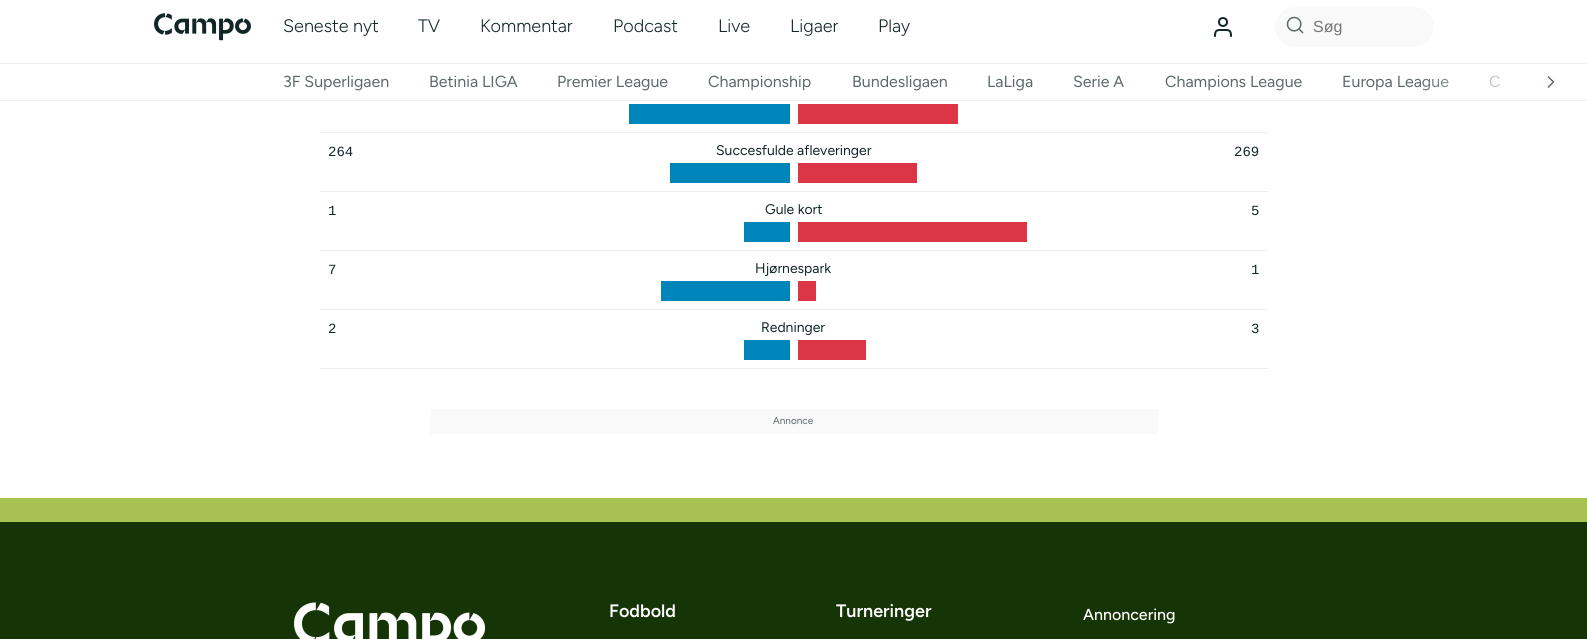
#include <cairo/cairo.h>
#include <math.h>
#include <stddef.h>

typedef struct { double x, y; const char *s; } line_t;
typedef struct { double x, y, w, h; unsigned color; } box_t;
static cairo_t *cr;

static void rgb(unsigned color)
{
	cairo_set_source_rgb(cr, (color >> 16) / 255.0, (color >> 8 & 255) / 255.0, (color & 255) / 255.0);
}

static void rrect(double x, double y, double w, double h, double r)
{
	cairo_new_sub_path(cr);
	cairo_arc(cr, x + w - r, y + h - r, r, 0, M_PI / 2);
	cairo_arc(cr, x + r, y + h - r, r, M_PI / 2, M_PI);
	cairo_arc(cr, x + r, y + r, r, M_PI, 1.5 * M_PI);
	cairo_arc(cr, x + w - r, y + r, r, 1.5 * M_PI, 2 * M_PI);
	cairo_close_path(cr);
}

static void image(const char *path, double x, double y, double w, double h)
{
	cairo_surface_t *image = cairo_image_surface_create_from_png(path);
	cairo_save(cr);
	cairo_set_source_surface(cr, image, x, y);
	cairo_rectangle(cr, x, y, w, h);
	cairo_fill(cr);
	cairo_restore(cr);
	cairo_surface_destroy(image);
}

int main(void) {
	cairo_surface_t *surface = cairo_image_surface_create(CAIRO_FORMAT_RGB24, 1587, 639);
	cr = cairo_create(surface);
	cairo_font_options_t *options = cairo_font_options_create();
	cairo_font_options_set_hint_metrics(options, CAIRO_HINT_METRICS_OFF);
	cairo_font_options_set_hint_style(options, CAIRO_HINT_STYLE_NONE);
	cairo_set_font_options(cr, options);
	cairo_set_miter_limit(cr, 4);
	cairo_pattern_t *gradient;
	rgb(0xffffff);
	cairo_paint(cr);
	rgb(0xebeeee);
	cairo_rectangle(cr, 0, 100, 1587, 1);
	cairo_fill(cr);
	image("img/1.png", 154, 13, 97, 28);
	cairo_new_path(cr);
	cairo_move_to(cr, 1231, 36);
	cairo_curve_to(cr, 1231, 29.5, 1228.5, 30, 1223, 30);
	cairo_curve_to(cr, 1217.5, 30, 1215, 29.5, 1215, 36);
	rgb(0x122527);
	cairo_set_line_cap(cr, CAIRO_LINE_CAP_ROUND);
	cairo_set_line_join(cr, CAIRO_LINE_JOIN_ROUND);
	cairo_stroke(cr);
	cairo_arc(cr, 1223, 22, 4, 0, 2 * M_PI);
	cairo_set_line_cap(cr, CAIRO_LINE_CAP_BUTT);
	cairo_set_line_join(cr, CAIRO_LINE_JOIN_MITER);
	cairo_stroke(cr);
	rgb(0xf9f9f9);
	rrect(1275, 7, 159, 40, 20);
	cairo_fill(cr);
	image("img/2.png", 1286, 16, 18, 18);
	rgb(0xebeeee);
	cairo_rectangle(cr, 0, 63, 1587, 1);
	cairo_fill(cr);
	image("img/3.png", 1547, 76, 8, 12);
	{
		static const box_t items[] = {
			{320, 132, 948, 1, 0xebeeee},
			{629, 104, 161, 20, 0x0085ba},
			{798, 104, 160, 20, 0xdc3545},
			{320, 191, 948, 1, 0xebeeee},
			{670, 163, 120, 20, 0x0085ba},
			{798, 163, 119, 20, 0xdc3545},
			{320, 250, 948, 1, 0xebeeee},
			{744, 222, 46, 20, 0x0085ba},
			{798, 222, 229, 20, 0xdc3545},
			{320, 309, 948, 1, 0xebeeee},
			{661, 281, 129, 20, 0x0085ba},
			{798, 281, 18, 20, 0xdc3545},
			{320, 368, 948, 1, 0xebeeee},
			{744, 340, 46, 20, 0x0085ba},
			{798, 340, 68, 20, 0xdc3545},
			{430, 409, 728, 25, 0xf9f9f9},
			{0, 522, 1587, 117, 0x163506},
			{0, 498, 1587, 24, 0xa6c253},
		};
		for (size_t i = 0; i < sizeof items / sizeof *items; i++) {
			rgb(items[i].color);
			cairo_rectangle(cr, items[i].x, items[i].y, items[i].w, items[i].h);
			cairo_fill(cr);
		}
	}
	image("img/4.png", 294, 602, 191, 37);
	cairo_select_font_face(cr, "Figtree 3 Light", CAIRO_FONT_SLANT_NORMAL, CAIRO_FONT_WEIGHT_NORMAL);
	cairo_set_font_size(cr, 18);
	rgb(0x122527);
	{
		static const line_t items[] = {
			{283, 32, "Seneste nyt"},
			{418, 32, "TV"},
			{480, 32, "Kommentar"},
			{613, 32, "Podcast"},
			{718, 32, "Live"},
			{790, 32, "Ligaer"},
			{878, 32, "Play"},
		};
		for (size_t i = 0; i < sizeof items / sizeof *items; i++) {
			cairo_move_to(cr, items[i].x, items[i].y);
			cairo_show_text(cr, items[i].s);
		}
	}
	cairo_select_font_face(cr, "Liberation Sans", CAIRO_FONT_SLANT_NORMAL, CAIRO_FONT_WEIGHT_NORMAL);
	cairo_set_font_size(cr, 16);
	rgb(0x757575);
	cairo_move_to(cr, 1313, 32);
	cairo_show_text(cr, "Søg");
	cairo_select_font_face(cr, "Figtree Light", CAIRO_FONT_SLANT_NORMAL, CAIRO_FONT_WEIGHT_NORMAL);
	rgb(0x5c686a);
	{
		static const line_t items[] = {
			{283, 87, "3F Superligaen"},
			{429, 87, "Betinia LIGA"},
			{557, 87, "Premier League"},
			{708, 87, "Championship"},
			{852, 87, "Bundesligaen"},
			{987, 87, "LaLiga"},
			{1073, 87, "Serie A"},
			{1165, 87, "Champions League"},
			{1342, 87, "Europa League"},
			{1489, 87, "C"},
		};
		for (size_t i = 0; i < sizeof items / sizeof *items; i++) {
			cairo_move_to(cr, items[i].x, items[i].y);
			cairo_show_text(cr, items[i].s);
		}
	}
	gradient = cairo_pattern_create_linear(1587, 82, 1415, 82);
	cairo_pattern_add_color_stop_rgba(gradient, 0, 1, 1, 1, 1);
	cairo_pattern_add_color_stop_rgba(gradient, 0.27, 1, 1, 1, 1);
	cairo_pattern_add_color_stop_rgba(gradient, 1, 1, 1, 1, 0);
	cairo_set_source(cr, gradient);
	cairo_pattern_destroy(gradient);
	cairo_rectangle(cr, 1418, 75, 82, 16);
	cairo_fill(cr);
	cairo_select_font_face(cr, "Liberation Mono", CAIRO_FONT_SLANT_NORMAL, CAIRO_FONT_WEIGHT_NORMAL);
	cairo_set_font_size(cr, 14);
	rgb(0x122527);
	cairo_move_to(cr, 328, 156);
	cairo_show_text(cr, "264");
	cairo_select_font_face(cr, "Figtree Light", CAIRO_FONT_SLANT_NORMAL, CAIRO_FONT_WEIGHT_NORMAL);
	cairo_move_to(cr, 716, 155);
	cairo_show_text(cr, "Succesfulde afleveringer");
	cairo_select_font_face(cr, "Liberation Mono", CAIRO_FONT_SLANT_NORMAL, CAIRO_FONT_WEIGHT_NORMAL);
	cairo_move_to(cr, 1234, 156);
	cairo_show_text(cr, "269");
	cairo_move_to(cr, 328, 215);
	cairo_show_text(cr, "1");
	cairo_select_font_face(cr, "Figtree Light", CAIRO_FONT_SLANT_NORMAL, CAIRO_FONT_WEIGHT_NORMAL);
	cairo_move_to(cr, 765, 214);
	cairo_show_text(cr, "Gule kort");
	cairo_select_font_face(cr, "Liberation Mono", CAIRO_FONT_SLANT_NORMAL, CAIRO_FONT_WEIGHT_NORMAL);
	cairo_move_to(cr, 1251, 215);
	cairo_show_text(cr, "5");
	cairo_move_to(cr, 328, 274);
	cairo_show_text(cr, "7");
	cairo_select_font_face(cr, "Figtree Light", CAIRO_FONT_SLANT_NORMAL, CAIRO_FONT_WEIGHT_NORMAL);
	cairo_move_to(cr, 755, 273);
	cairo_show_text(cr, "Hjørnespark");
	cairo_select_font_face(cr, "Liberation Mono", CAIRO_FONT_SLANT_NORMAL, CAIRO_FONT_WEIGHT_NORMAL);
	cairo_move_to(cr, 1251, 274);
	cairo_show_text(cr, "1");
	cairo_move_to(cr, 328, 333);
	cairo_show_text(cr, "2");
	cairo_select_font_face(cr, "Figtree Light", CAIRO_FONT_SLANT_NORMAL, CAIRO_FONT_WEIGHT_NORMAL);
	cairo_move_to(cr, 761, 332);
	cairo_show_text(cr, "Redninger");
	cairo_select_font_face(cr, "Liberation Mono", CAIRO_FONT_SLANT_NORMAL, CAIRO_FONT_WEIGHT_NORMAL);
	cairo_move_to(cr, 1251, 333);
	cairo_show_text(cr, "3");
	cairo_select_font_face(cr, "Figtree Light", CAIRO_FONT_SLANT_NORMAL, CAIRO_FONT_WEIGHT_NORMAL);
	cairo_set_font_size(cr, 10);
	rgb(0x5c686a);
	cairo_move_to(cr, 773, 424);
	cairo_show_text(cr, "Annonce");
	cairo_select_font_face(cr, "Figtree SemiBold", CAIRO_FONT_SLANT_NORMAL, CAIRO_FONT_WEIGHT_NORMAL);
	cairo_set_font_size(cr, 18);
	rgb(0xffffff);
	cairo_move_to(cr, 609, 617);
	cairo_show_text(cr, "Fodbold");
	cairo_move_to(cr, 836, 617);
	cairo_show_text(cr, "Turneringer");
	cairo_select_font_face(cr, "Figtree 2 Light", CAIRO_FONT_SLANT_NORMAL, CAIRO_FONT_WEIGHT_NORMAL);
	cairo_set_font_size(cr, 16);
	cairo_move_to(cr, 1083, 620);
	cairo_show_text(cr, "Annoncering");
	cairo_surface_write_to_png(surface, "page.png");
	cairo_font_options_destroy(options);
	cairo_destroy(cr);
	cairo_surface_destroy(surface);
	return 0;
}
